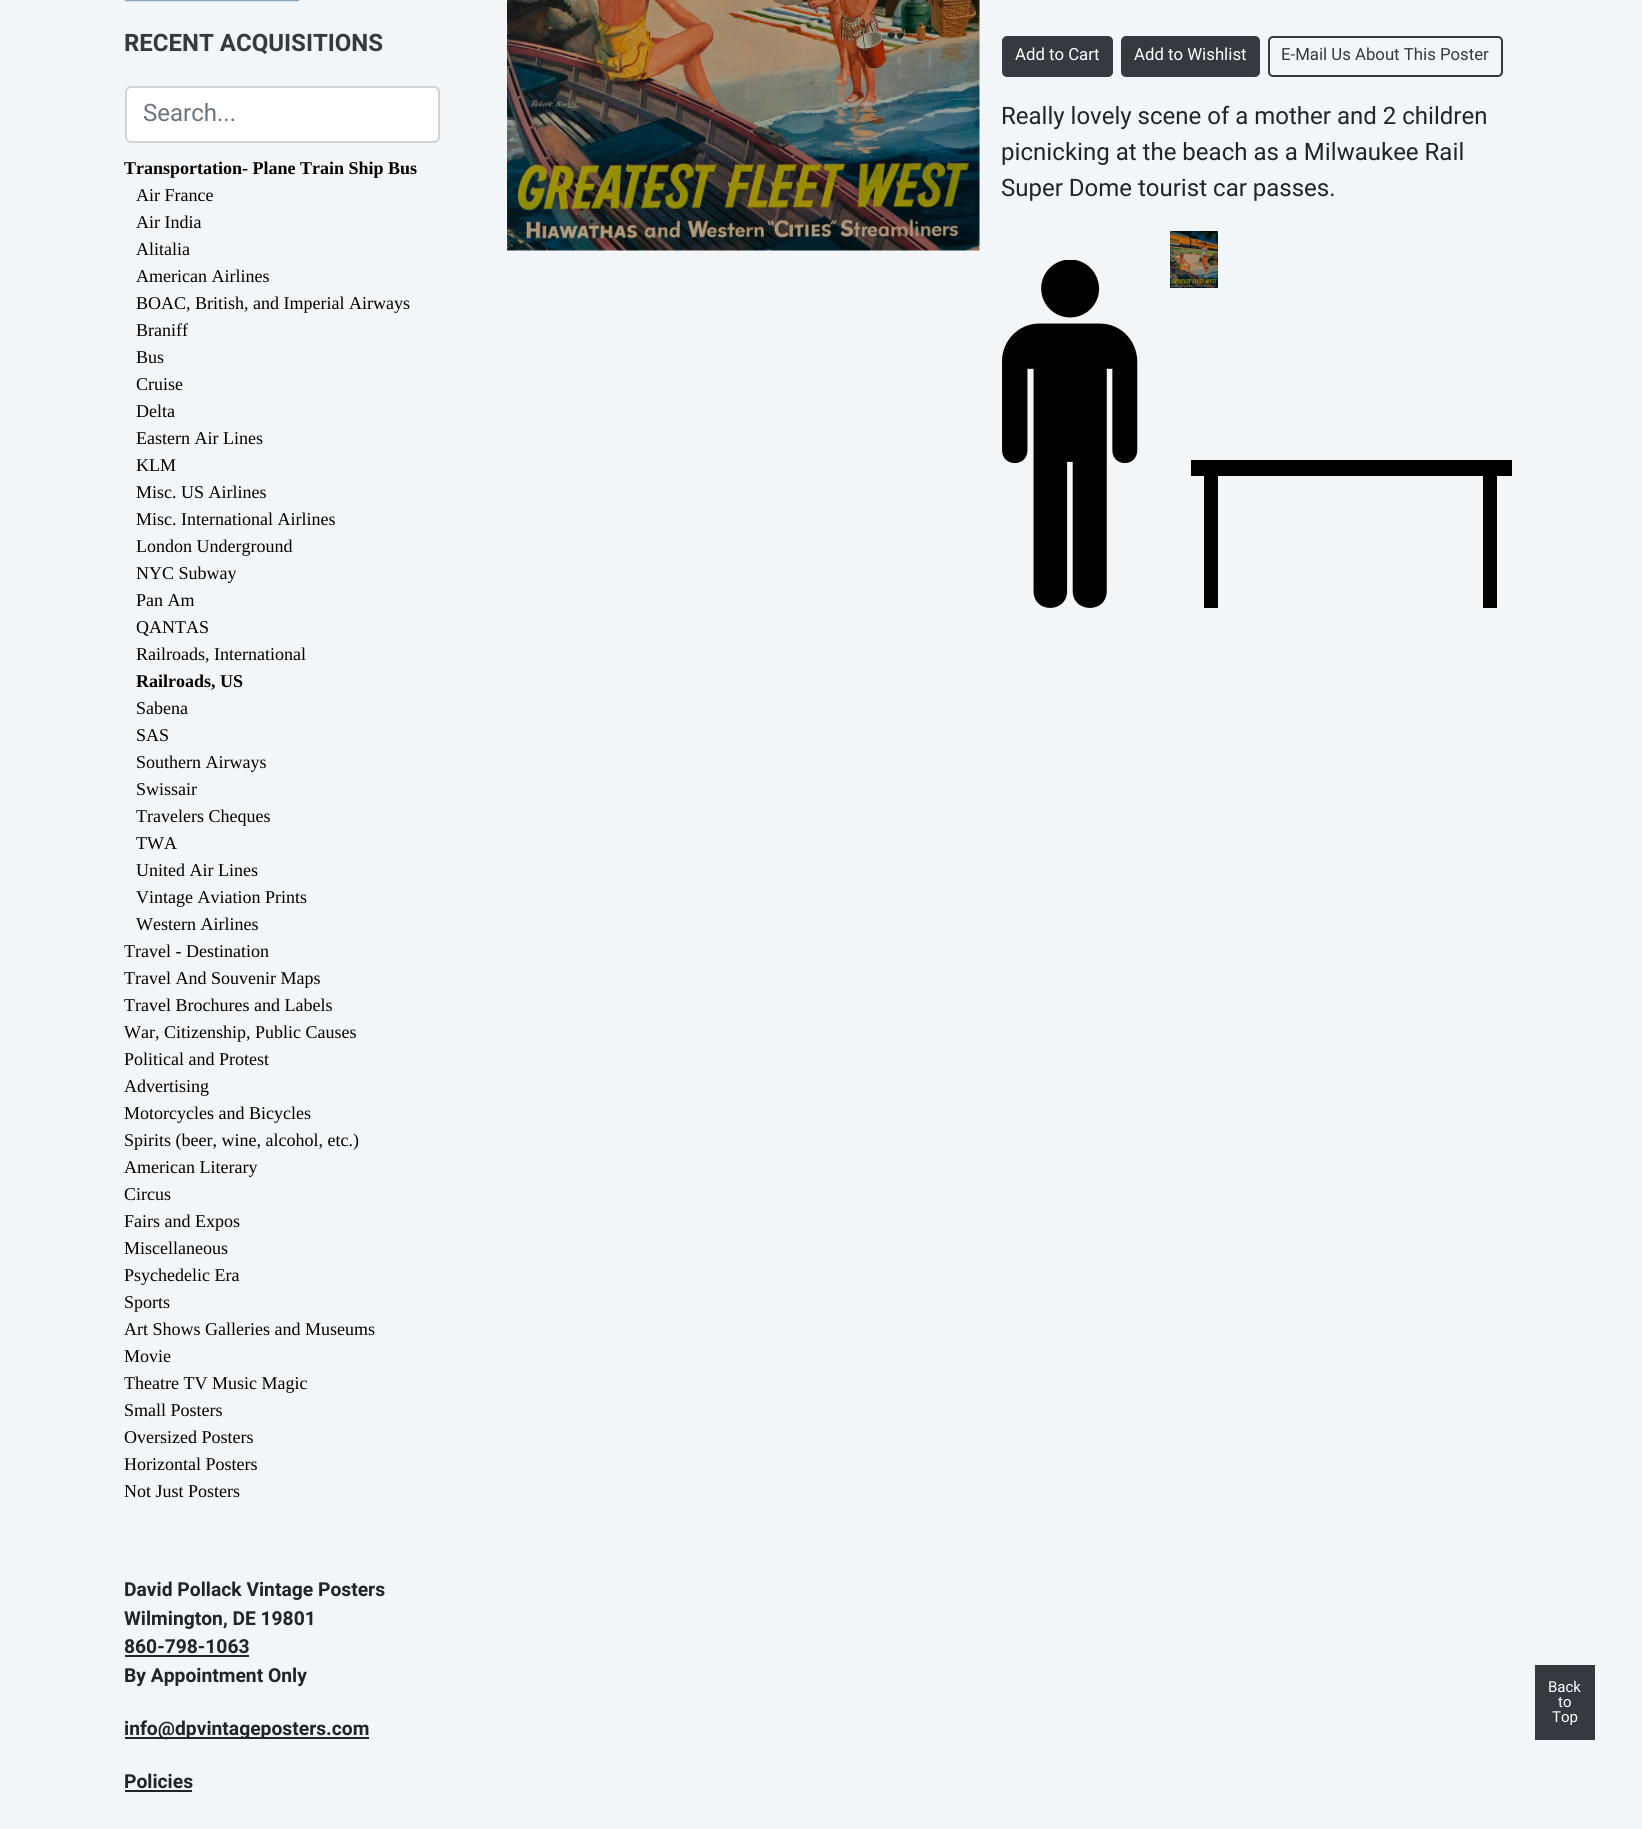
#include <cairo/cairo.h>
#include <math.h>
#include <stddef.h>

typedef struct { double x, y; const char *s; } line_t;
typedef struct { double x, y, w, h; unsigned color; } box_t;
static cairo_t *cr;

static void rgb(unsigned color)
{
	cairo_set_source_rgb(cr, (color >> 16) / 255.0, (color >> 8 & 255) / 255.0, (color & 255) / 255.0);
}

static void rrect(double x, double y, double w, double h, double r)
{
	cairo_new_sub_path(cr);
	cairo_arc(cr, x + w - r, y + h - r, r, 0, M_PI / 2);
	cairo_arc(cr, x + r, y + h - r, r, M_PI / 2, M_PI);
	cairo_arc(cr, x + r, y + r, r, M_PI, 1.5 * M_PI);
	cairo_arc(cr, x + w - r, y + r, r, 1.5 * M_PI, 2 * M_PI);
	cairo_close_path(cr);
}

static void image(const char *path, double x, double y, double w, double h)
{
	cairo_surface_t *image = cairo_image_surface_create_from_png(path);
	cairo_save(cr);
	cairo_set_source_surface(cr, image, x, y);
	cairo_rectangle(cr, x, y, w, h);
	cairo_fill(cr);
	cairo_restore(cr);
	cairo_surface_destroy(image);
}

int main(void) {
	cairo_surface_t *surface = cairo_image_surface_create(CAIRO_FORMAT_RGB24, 1642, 1829);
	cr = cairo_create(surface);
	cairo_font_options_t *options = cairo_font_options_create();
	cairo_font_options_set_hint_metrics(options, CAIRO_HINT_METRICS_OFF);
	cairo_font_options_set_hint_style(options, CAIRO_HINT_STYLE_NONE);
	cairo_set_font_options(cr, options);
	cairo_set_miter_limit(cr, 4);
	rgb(0xf3f6f8);
	cairo_paint(cr);
	image("img/1.png", 125, 0, 175, 2);
	rgb(0xffffff);
	rrect(126, 87, 313, 55, 5);
	cairo_fill_preserve(cr);
	rgb(0xced4da);
	cairo_stroke(cr);
	{
		static const box_t items[] = {
			{125, 1655, 124, 2, 0x212529},
			{125, 1737, 244, 2, 0x212529},
			{125, 1790, 67, 2, 0x212529},
		};
		for (size_t i = 0; i < sizeof items / sizeof *items; i++) {
			rgb(items[i].color);
			cairo_rectangle(cr, items[i].x, items[i].y, items[i].w, items[i].h);
			cairo_fill(cr);
		}
	}
	image("img/2.png", 507, 0, 473, 251);
	rgb(0x343a40);
	rrect(1003, 37, 109, 39, 4);
	cairo_fill_preserve(cr);
	cairo_stroke(cr);
	rrect(1122, 37, 137, 39, 4);
	cairo_fill_preserve(cr);
	cairo_stroke(cr);
	rrect(1269, 37, 233, 39, 4);
	cairo_stroke(cr);
	image("img/3.png", 1170, 231, 48, 57);
	image("img/4.png", 1002, 260, 510, 348);
	cairo_rectangle(cr, 1535, 1665, 60, 75);
	cairo_fill(cr);
	cairo_select_font_face(cr, "Heebo", CAIRO_FONT_SLANT_NORMAL, CAIRO_FONT_WEIGHT_BOLD);
	cairo_set_font_size(cr, 24);
	cairo_move_to(cr, 124, 51);
	cairo_show_text(cr, "RECENT ACQUISITIONS");
	cairo_select_font_face(cr, "Heebo", CAIRO_FONT_SLANT_NORMAL, CAIRO_FONT_WEIGHT_NORMAL);
	rgb(0x6c757d);
	cairo_move_to(cr, 143, 121);
	cairo_show_text(cr, "Search...");
	cairo_select_font_face(cr, "Liberation Serif", CAIRO_FONT_SLANT_NORMAL, CAIRO_FONT_WEIGHT_BOLD);
	cairo_set_font_size(cr, 18);
	rgb(0x000000);
	cairo_move_to(cr, 124, 174);
	cairo_show_text(cr, "Transportation- Plane Train Ship Bus");
	cairo_select_font_face(cr, "Liberation Serif", CAIRO_FONT_SLANT_NORMAL, CAIRO_FONT_WEIGHT_NORMAL);
	{
		static const line_t items[] = {
			{136, 201, "Air France"},
			{136, 228, "Air India"},
			{136, 255, "Alitalia"},
			{136, 282, "American Airlines"},
			{136, 309, "BOAC, British, and Imperial Airways"},
			{136, 336, "Braniff"},
			{136, 363, "Bus"},
			{136, 390, "Cruise"},
			{136, 417, "Delta"},
			{136, 444, "Eastern Air Lines"},
			{136, 471, "KLM"},
			{136, 498, "Misc. US Airlines"},
			{136, 525, "Misc. International Airlines"},
			{136, 552, "London Underground"},
			{136, 579, "NYC Subway"},
			{136, 606, "Pan Am"},
			{136, 633, "QANTAS"},
			{136, 660, "Railroads, International"},
		};
		for (size_t i = 0; i < sizeof items / sizeof *items; i++) {
			cairo_move_to(cr, items[i].x, items[i].y);
			cairo_show_text(cr, items[i].s);
		}
	}
	cairo_select_font_face(cr, "Liberation Serif", CAIRO_FONT_SLANT_NORMAL, CAIRO_FONT_WEIGHT_BOLD);
	cairo_move_to(cr, 136, 687);
	cairo_show_text(cr, "Railroads, US");
	cairo_select_font_face(cr, "Liberation Serif", CAIRO_FONT_SLANT_NORMAL, CAIRO_FONT_WEIGHT_NORMAL);
	{
		static const line_t items[] = {
			{136, 714, "Sabena"},
			{136, 741, "SAS"},
			{136, 768, "Southern Airways"},
			{136, 795, "Swissair"},
			{136, 822, "Travelers Cheques"},
			{136, 849, "TWA"},
			{136, 876, "United Air Lines"},
			{136, 903, "Vintage Aviation Prints"},
			{136, 930, "Western Airlines"},
			{124, 957, "Travel - Destination"},
			{124, 984, "Travel And Souvenir Maps"},
			{124, 1011, "Travel Brochures and Labels"},
			{124, 1038, "War, Citizenship, Public Causes"},
			{124, 1065, "Political and Protest"},
			{124, 1092, "Advertising"},
			{124, 1119, "Motorcycles and Bicycles"},
			{124, 1146, "Spirits (beer, wine, alcohol, etc.)"},
			{124, 1173, "American Literary"},
			{124, 1200, "Circus"},
			{124, 1227, "Fairs and Expos"},
			{124, 1254, "Miscellaneous"},
			{124, 1281, "Psychedelic Era"},
			{124, 1308, "Sports"},
			{124, 1335, "Art Shows Galleries and Museums"},
			{124, 1362, "Movie"},
			{124, 1389, "Theatre TV Music Magic"},
			{124, 1416, "Small Posters"},
			{124, 1443, "Oversized Posters"},
			{124, 1470, "Horizontal Posters"},
			{124, 1497, "Not Just Posters"},
		};
		for (size_t i = 0; i < sizeof items / sizeof *items; i++) {
			cairo_move_to(cr, items[i].x, items[i].y);
			cairo_show_text(cr, items[i].s);
		}
	}
	cairo_select_font_face(cr, "Heebo", CAIRO_FONT_SLANT_NORMAL, CAIRO_FONT_WEIGHT_BOLD);
	cairo_set_font_size(cr, 19.25);
	rgb(0x212529);
	{
		static const line_t items[] = {
			{124, 1596, "David Pollack Vintage Posters"},
			{124, 1625, "Wilmington, DE 19801"},
			{124, 1653, "860-798-1063"},
			{124, 1682, "By Appointment Only"},
			{124, 1735, "info@dpvintageposters.com"},
			{124, 1788, "Policies"},
		};
		for (size_t i = 0; i < sizeof items / sizeof *items; i++) {
			cairo_move_to(cr, items[i].x, items[i].y);
			cairo_show_text(cr, items[i].s);
		}
	}
	cairo_select_font_face(cr, "Heebo", CAIRO_FONT_SLANT_NORMAL, CAIRO_FONT_WEIGHT_NORMAL);
	cairo_set_font_size(cr, 16.75);
	rgb(0xffffff);
	cairo_move_to(cr, 1015, 60);
	cairo_show_text(cr, "Add to Cart");
	cairo_move_to(cr, 1134, 60);
	cairo_show_text(cr, "Add to Wishlist");
	rgb(0x343a40);
	cairo_move_to(cr, 1281, 60);
	cairo_show_text(cr, "E-Mail Us About This Poster");
	cairo_set_font_size(cr, 24);
	rgb(0x212529);
	{
		static const line_t items[] = {
			{1001, 124, "Really lovely scene of a mother and 2 children"},
			{1001, 160, "picnicking at the beach as a Milwaukee Rail"},
			{1001, 196, "Super Dome tourist car passes."},
		};
		for (size_t i = 0; i < sizeof items / sizeof *items; i++) {
			cairo_move_to(cr, items[i].x, items[i].y);
			cairo_show_text(cr, items[i].s);
		}
	}
	cairo_set_font_size(cr, 15);
	rgb(0xffffff);
	{
		static const line_t items[] = {
			{1548, 1692, "Back"},
			{1558, 1707, "to"},
			{1552, 1722, "Top"},
		};
		for (size_t i = 0; i < sizeof items / sizeof *items; i++) {
			cairo_move_to(cr, items[i].x, items[i].y);
			cairo_show_text(cr, items[i].s);
		}
	}
	cairo_surface_write_to_png(surface, "page.png");
	cairo_font_options_destroy(options);
	cairo_destroy(cr);
	cairo_surface_destroy(surface);
	return 0;
}
